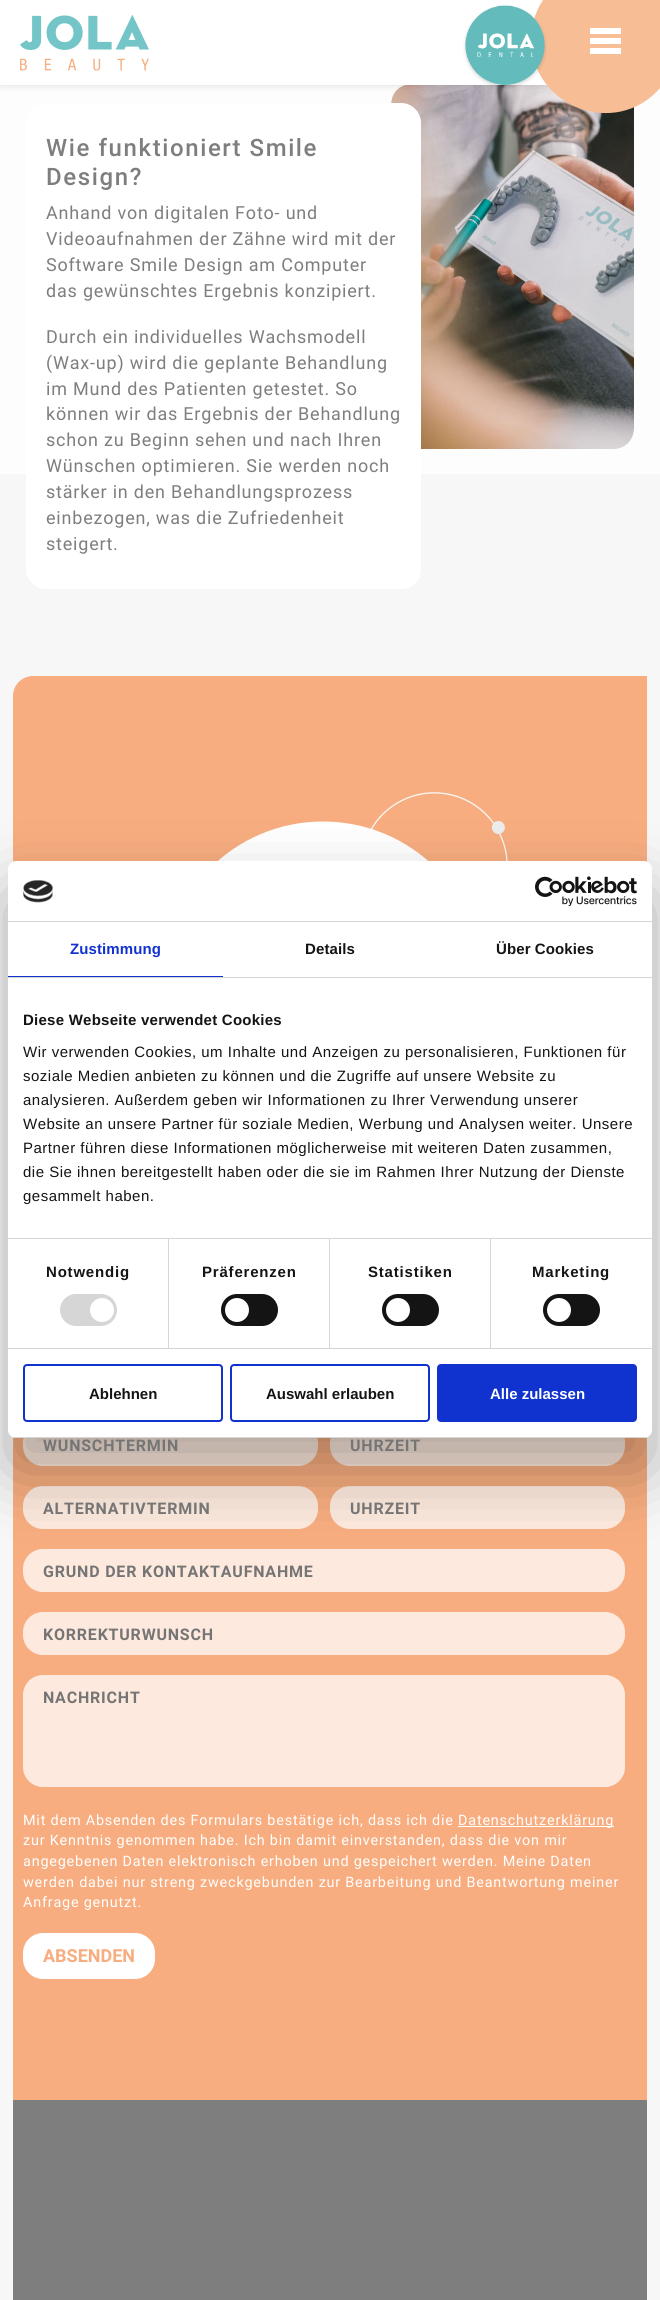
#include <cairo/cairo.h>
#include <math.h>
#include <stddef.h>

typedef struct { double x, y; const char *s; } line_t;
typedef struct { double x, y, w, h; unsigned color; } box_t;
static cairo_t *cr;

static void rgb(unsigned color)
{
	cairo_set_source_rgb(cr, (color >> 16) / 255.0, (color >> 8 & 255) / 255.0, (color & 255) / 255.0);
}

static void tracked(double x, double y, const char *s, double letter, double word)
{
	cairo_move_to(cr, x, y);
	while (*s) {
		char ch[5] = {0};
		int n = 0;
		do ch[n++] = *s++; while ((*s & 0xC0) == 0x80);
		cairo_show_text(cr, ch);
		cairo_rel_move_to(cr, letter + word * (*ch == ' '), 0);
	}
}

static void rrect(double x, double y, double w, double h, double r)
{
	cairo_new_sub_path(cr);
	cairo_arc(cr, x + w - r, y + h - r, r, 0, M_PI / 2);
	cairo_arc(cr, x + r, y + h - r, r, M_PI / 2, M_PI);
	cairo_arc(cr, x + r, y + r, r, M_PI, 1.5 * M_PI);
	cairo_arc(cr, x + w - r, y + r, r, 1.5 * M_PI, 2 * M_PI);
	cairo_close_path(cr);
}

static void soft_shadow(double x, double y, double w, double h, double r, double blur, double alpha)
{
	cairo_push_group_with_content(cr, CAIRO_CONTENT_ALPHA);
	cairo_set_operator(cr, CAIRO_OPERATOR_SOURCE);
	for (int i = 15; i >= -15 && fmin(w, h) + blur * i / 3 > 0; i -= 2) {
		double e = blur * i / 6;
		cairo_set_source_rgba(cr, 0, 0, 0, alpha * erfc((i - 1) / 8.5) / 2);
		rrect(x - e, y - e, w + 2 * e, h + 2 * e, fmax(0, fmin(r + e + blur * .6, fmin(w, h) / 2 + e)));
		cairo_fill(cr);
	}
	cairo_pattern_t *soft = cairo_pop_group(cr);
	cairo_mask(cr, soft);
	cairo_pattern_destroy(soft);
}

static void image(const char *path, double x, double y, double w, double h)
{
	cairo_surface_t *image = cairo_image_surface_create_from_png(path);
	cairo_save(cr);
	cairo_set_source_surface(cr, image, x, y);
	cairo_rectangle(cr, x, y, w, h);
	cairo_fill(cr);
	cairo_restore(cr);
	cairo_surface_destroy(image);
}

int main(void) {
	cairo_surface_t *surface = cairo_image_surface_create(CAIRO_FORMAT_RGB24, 660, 2300);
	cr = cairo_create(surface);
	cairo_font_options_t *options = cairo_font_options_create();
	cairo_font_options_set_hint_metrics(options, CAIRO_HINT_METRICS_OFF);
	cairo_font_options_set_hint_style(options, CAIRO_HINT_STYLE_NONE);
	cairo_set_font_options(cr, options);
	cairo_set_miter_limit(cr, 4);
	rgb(0xf7f7f7);
	cairo_paint(cr);
	rgb(0xfdfdfd);
	cairo_rectangle(cr, 0, 85, 660, 389);
	cairo_fill(cr);
	image("img/3.png", 391, 85, 243, 364);
	rgb(0x000000);
	soft_shadow(0, -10, 660, 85, 0, 7.5, 0.75);
	rgb(0xffffff);
	cairo_rectangle(cr, 0, 0, 547, 85);
	cairo_fill(cr);
	image("img/1.png", 20, 15, 129, 56);
	rgb(0xf7bd95);
	cairo_new_path(cr);
	cairo_move_to(cr, 531, 40);
	cairo_curve_to(cr, 531, 26, 535, 12, 543, 0);
	cairo_line_to(cr, 660, 0);
	cairo_line_to(cr, 660, 88);
	cairo_curve_to(cr, 616, 139, 531, 107, 531, 39);
	cairo_close_path(cr);
	cairo_fill(cr);
	{
		static const box_t items[] = {
			{590, 28, 31, 6, 0xffffff},
			{590, 38, 31, 6, 0xffffff},
			{590, 48, 31, 6, 0xffffff},
		};
		for (size_t i = 0; i < sizeof items / sizeof *items; i++) {
			rgb(items[i].color);
			cairo_rectangle(cr, items[i].x, items[i].y, items[i].w, items[i].h);
			cairo_fill(cr);
		}
	}
	image("img/2.png", 463, 5, 84, 84);
	rrect(26, 103, 395, 486, 20);
	cairo_fill(cr);
	rgb(0xf7ad7f);
	cairo_new_path(cr);
	cairo_move_to(cr, 33, 676);
	cairo_line_to(cr, 647, 676);
	cairo_line_to(cr, 647, 2100);
	cairo_line_to(cr, 13, 2100);
	cairo_line_to(cr, 13, 696);
	cairo_curve_to(cr, 13, 685, 22, 676, 33, 676);
	cairo_close_path(cr);
	cairo_fill(cr);
	image("img/4.png", 218, 792, 290, 69);
	rgb(0xfde9dd);
	rrect(23, 1423, 295, 43, 20);
	cairo_fill(cr);
	rrect(330, 1423, 295, 43, 20);
	cairo_fill(cr);
	rrect(23, 1486, 295, 43, 20);
	cairo_fill(cr);
	rrect(330, 1486, 295, 43, 20);
	cairo_fill(cr);
	rrect(23, 1549, 602, 43, 20);
	cairo_fill(cr);
	rrect(23, 1612, 602, 43, 20);
	cairo_fill(cr);
	rrect(23, 1675, 602, 112, 20);
	cairo_fill(cr);
	rgb(0xffffff);
	cairo_rectangle(cr, 458, 1826, 156, 1);
	cairo_fill(cr);
	rrect(23, 1933, 132, 46, 20);
	cairo_fill(cr);
	rgb(0x7e7e7e);
	cairo_rectangle(cr, 13, 2100, 634, 200);
	cairo_fill(cr);
	rgb(0x000000);
	soft_shadow(8, 893, 644, 577, 8, 34, 0.3);
	rgb(0xffffff);
	rrect(8, 861, 644, 577, 8);
	cairo_fill(cr);
	rgb(0xd6d6d6);
	cairo_rectangle(cr, 8, 921, 644, 1);
	cairo_fill(cr);
	image("img/5.png", 23, 880, 30, 23);
	image("img/6.png", 535, 876, 102, 30);
	{
		static const box_t items[] = {
			{8, 977, 644, 1, 0xd6d6d6},
			{8, 976, 215, 1, 0x1032cf},
			{8, 1238, 644, 1, 0xd6d6d6},
			{8, 1348, 644, 1, 0xd6d6d6},
			{168, 1239, 1, 109, 0xd6d6d6},
		};
		for (size_t i = 0; i < sizeof items / sizeof *items; i++) {
			rgb(items[i].color);
			cairo_rectangle(cr, items[i].x, items[i].y, items[i].w, items[i].h);
			cairo_fill(cr);
		}
	}
	rrect(60, 1294, 57, 32, 16);
	cairo_fill(cr);
	rgb(0xffffff);
	cairo_arc(cr, 102, 1310, 12, 0, 2 * M_PI);
	cairo_fill(cr);
	rgb(0xd6d6d6);
	cairo_rectangle(cr, 329, 1239, 1, 109);
	cairo_fill(cr);
	rgb(0x141414);
	rrect(221, 1294, 57, 32, 16);
	cairo_fill(cr);
	rgb(0xffffff);
	cairo_arc(cr, 237, 1310, 12, 0, 2 * M_PI);
	cairo_fill(cr);
	rgb(0xd6d6d6);
	cairo_rectangle(cr, 490, 1239, 1, 109);
	cairo_fill(cr);
	rgb(0x141414);
	rrect(382, 1294, 57, 32, 16);
	cairo_fill(cr);
	rgb(0xffffff);
	cairo_arc(cr, 398, 1310, 12, 0, 2 * M_PI);
	cairo_fill(cr);
	rgb(0x141414);
	rrect(543, 1294, 57, 32, 16);
	cairo_fill(cr);
	rgb(0xffffff);
	cairo_arc(cr, 559, 1310, 12, 0, 2 * M_PI);
	cairo_fill(cr);
	cairo_save(cr);
	rrect(8, 861, 644, 577, 8);
	cairo_clip(cr);
	rgb(0xd6d6d6);
	cairo_rectangle(cr, 8, 1437, 644, 1);
	cairo_fill(cr);
	cairo_restore(cr);
	rrect(24, 1365, 198, 56, 3);
	rgb(0x1032cf);
	cairo_stroke(cr);
	rrect(231, 1365, 198, 56, 3);
	cairo_stroke(cr);
	rrect(438, 1365, 198, 56, 3);
	cairo_fill_preserve(cr);
	cairo_stroke(cr);
	cairo_select_font_face(cr, "Roboto Medium", CAIRO_FONT_SLANT_NORMAL, CAIRO_FONT_WEIGHT_NORMAL);
	cairo_set_font_size(cr, 24);
	rgb(0x7e7e7e);
	tracked(46, 156, "Wie funktioniert Smile", 1.6, 0);
	tracked(46, 185, "Design?", 1.6, 0);
	cairo_select_font_face(cr, "Roboto", CAIRO_FONT_SLANT_NORMAL, CAIRO_FONT_WEIGHT_NORMAL);
	cairo_set_font_size(cr, 18);
	{
		static const line_t items[] = {
			{46, 219, "Anhand von digitalen Foto- und"},
			{46, 245, "Videoaufnahmen der Zähne wird mit der"},
			{46, 271, "Software Smile Design am Computer"},
			{46, 297, "das gewünschtes Ergebnis konzipiert."},
			{46, 343, "Durch ein individuelles Wachsmodell"},
			{46, 369, "(Wax-up) wird die geplante Behandlung"},
			{46, 395, "im Mund des Patienten getestet. So"},
			{46, 420, "können wir das Ergebnis der Behandlung"},
			{46, 446, "schon zu Beginn sehen und nach Ihren"},
			{46, 472, "Wünschen optimieren. Sie werden noch"},
			{46, 498, "stärker in den Behandlungsprozess"},
			{46, 524, "einbezogen, was die Zufriedenheit"},
			{46, 550, "steigert."},
		};
		for (size_t i = 0; i < sizeof items / sizeof *items; i++) {
			tracked(items[i].x, items[i].y, items[i].s, 0.8, 0);
		}
	}
	cairo_select_font_face(cr, "Roboto", CAIRO_FONT_SLANT_NORMAL, CAIRO_FONT_WEIGHT_BOLD);
	cairo_set_font_size(cr, 16);
	rgb(0x757575);
	{
		static const line_t items[] = {
			{43, 1451, "WUNSCHTERMIN"},
			{350, 1451, "UHRZEIT"},
			{43, 1514, "ALTERNATIVTERMIN"},
			{350, 1514, "UHRZEIT"},
			{43, 1577, "GRUND DER KONTAKTAUFNAHME"},
			{43, 1640, "KORREKTURWUNSCH"},
			{43, 1703, "NACHRICHT"},
		};
		for (size_t i = 0; i < sizeof items / sizeof *items; i++) {
			tracked(items[i].x, items[i].y, items[i].s, 0.8, 0);
		}
	}
	cairo_select_font_face(cr, "Roboto", CAIRO_FONT_SLANT_NORMAL, CAIRO_FONT_WEIGHT_NORMAL);
	cairo_set_font_size(cr, 14.4);
	rgb(0xffffff);
	{
		static const line_t items[] = {
			{23, 1825, "Mit dem Absenden des Formulars bestätige ich, dass ich die"},
			{458, 1825, "Datenschutzerklärung"},
			{23, 1845, "zur Kenntnis genommen habe. Ich bin damit einverstanden, dass die von mir"},
			{23, 1866, "angegebenen Daten elektronisch erhoben und gespeichert werden. Meine Daten"},
			{23, 1887, "werden dabei nur streng zweckgebunden zur Bearbeitung und Beantwortung meiner"},
			{23, 1907, "Anfrage genutzt."},
		};
		for (size_t i = 0; i < sizeof items / sizeof *items; i++) {
			tracked(items[i].x, items[i].y, items[i].s, 0.8, 0);
		}
	}
	cairo_select_font_face(cr, "Roboto", CAIRO_FONT_SLANT_NORMAL, CAIRO_FONT_WEIGHT_BOLD);
	cairo_set_font_size(cr, 18);
	rgb(0xf7ad7f);
	cairo_move_to(cr, 43, 1962);
	cairo_show_text(cr, "ABSENDEN");
	cairo_select_font_face(cr, "Liberation Sans", CAIRO_FONT_SLANT_NORMAL, CAIRO_FONT_WEIGHT_BOLD);
	cairo_set_font_size(cr, 15);
	rgb(0x1032cf);
	tracked(70, 954, "Zustimmung", 0.1, 0);
	rgb(0x141414);
	tracked(305, 954, "Details", 0.1, 0);
	tracked(496, 954, "Über Cookies", 0.1, 0);
	tracked(23, 1025, "Diese Webseite verwendet Cookies", 0.25, 0);
	cairo_select_font_face(cr, "Liberation Sans", CAIRO_FONT_SLANT_NORMAL, CAIRO_FONT_WEIGHT_NORMAL);
	{
		static const line_t items[] = {
			{23, 1057, "Wir verwenden Cookies, um Inhalte und Anzeigen zu personalisieren, Funktionen für"},
			{23, 1081, "soziale Medien anbieten zu können und die Zugriffe auf unsere Website zu"},
			{23, 1105, "analysieren. Außerdem geben wir Informationen zu Ihrer Verwendung unserer"},
			{23, 1129, "Website an unsere Partner für soziale Medien, Werbung und Analysen weiter. Unsere"},
			{23, 1153, "Partner führen diese Informationen möglicherweise mit weiteren Daten zusammen,"},
			{23, 1177, "die Sie ihnen bereitgestellt haben oder die sie im Rahmen Ihrer Nutzung der Dienste"},
			{23, 1201, "gesammelt haben."},
		};
		for (size_t i = 0; i < sizeof items / sizeof *items; i++) {
			tracked(items[i].x, items[i].y, items[i].s, 0.5, 0);
		}
	}
	cairo_select_font_face(cr, "Liberation Sans", CAIRO_FONT_SLANT_NORMAL, CAIRO_FONT_WEIGHT_BOLD);
	{
		static const line_t items[] = {
			{46, 1277, "Notwendig"},
			{202, 1277, "Präferenzen"},
			{368, 1277, "Statistiken"},
			{532, 1277, "Marketing"},
		};
		for (size_t i = 0; i < sizeof items / sizeof *items; i++) {
			tracked(items[i].x, items[i].y, items[i].s, 0.8, 0);
		}
	}
	cairo_move_to(cr, 89, 1399);
	cairo_show_text(cr, "Ablehnen");
	cairo_move_to(cr, 266, 1399);
	cairo_show_text(cr, "Auswahl erlauben");
	rgb(0xffffff);
	cairo_move_to(cr, 490, 1399);
	cairo_show_text(cr, "Alle zulassen");
	cairo_surface_write_to_png(surface, "page.png");
	cairo_font_options_destroy(options);
	cairo_destroy(cr);
	cairo_surface_destroy(surface);
	return 0;
}
